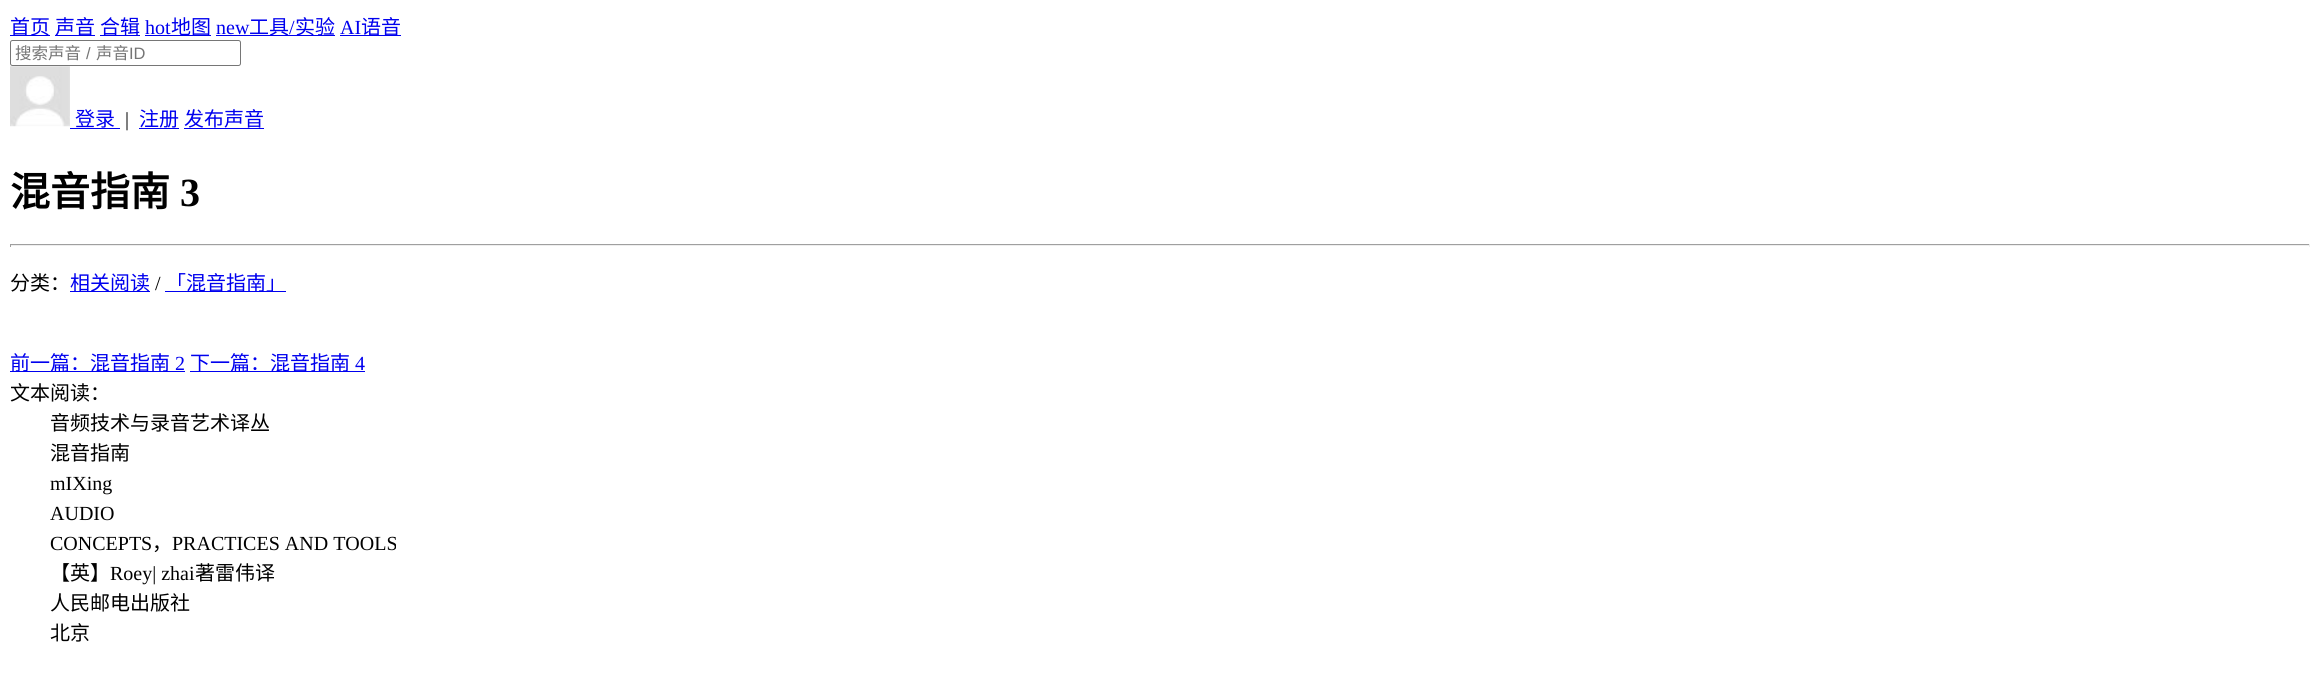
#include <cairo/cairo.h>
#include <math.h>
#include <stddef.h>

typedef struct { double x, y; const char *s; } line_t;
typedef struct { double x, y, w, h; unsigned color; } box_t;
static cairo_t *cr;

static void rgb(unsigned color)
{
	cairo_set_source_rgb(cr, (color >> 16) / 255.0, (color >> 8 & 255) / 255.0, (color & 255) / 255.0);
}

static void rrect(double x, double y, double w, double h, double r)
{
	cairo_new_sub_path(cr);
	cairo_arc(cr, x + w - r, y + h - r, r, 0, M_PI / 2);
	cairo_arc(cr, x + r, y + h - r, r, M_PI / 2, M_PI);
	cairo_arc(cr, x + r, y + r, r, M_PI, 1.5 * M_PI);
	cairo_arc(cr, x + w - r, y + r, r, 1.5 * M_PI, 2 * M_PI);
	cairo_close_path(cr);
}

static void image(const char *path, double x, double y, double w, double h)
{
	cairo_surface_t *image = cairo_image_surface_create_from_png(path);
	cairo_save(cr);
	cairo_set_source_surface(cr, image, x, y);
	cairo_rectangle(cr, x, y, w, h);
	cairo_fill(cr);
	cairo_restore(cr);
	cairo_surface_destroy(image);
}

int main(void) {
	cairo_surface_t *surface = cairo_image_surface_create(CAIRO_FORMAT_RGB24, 2320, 682);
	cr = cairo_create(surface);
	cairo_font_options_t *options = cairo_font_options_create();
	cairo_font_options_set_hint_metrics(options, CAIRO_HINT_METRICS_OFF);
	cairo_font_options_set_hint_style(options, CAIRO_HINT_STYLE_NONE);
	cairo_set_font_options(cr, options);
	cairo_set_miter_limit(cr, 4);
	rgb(0xffffff);
	cairo_paint(cr);
	{
		static const box_t items[] = {
			{10, 35, 40, 1, 0x0000ee},
			{55, 35, 40, 1, 0x0000ee},
			{100, 35, 40, 1, 0x0000ee},
			{145, 35, 66, 1, 0x0000ee},
			{216, 35, 119, 1, 0x0000ee},
			{340, 35, 61, 1, 0x0000ee},
		};
		for (size_t i = 0; i < sizeof items / sizeof *items; i++) {
			rgb(items[i].color);
			cairo_rectangle(cr, items[i].x, items[i].y, items[i].w, items[i].h);
			cairo_fill(cr);
		}
	}
	rrect(10.5, 40.5, 230, 25, 2);
	rgb(0x767676);
	cairo_set_line_width(cr, 1);
	cairo_stroke(cr);
	image("img/1.png", 10, 66, 60, 61);
	{
		static const box_t items[] = {
			{70, 128, 50, 1, 0x0000ee},
			{139, 128, 40, 1, 0x0000ee},
			{184, 128, 80, 1, 0x0000ee},
			{10, 244, 2300, 1, 0x9f9f9f},
			{2309, 244, 1, 3, 0xeeeeee},
			{10, 245, 2300, 1, 0xeeeeee},
			{10, 244, 1, 3, 0x9f9f9f},
			{70, 291, 80, 1, 0x0000ee},
			{165, 291, 121, 1, 0x0000ee},
			{10, 371, 175, 1, 0x0000ee},
			{190, 371, 175, 1, 0x0000ee},
		};
		for (size_t i = 0; i < sizeof items / sizeof *items; i++) {
			rgb(items[i].color);
			cairo_rectangle(cr, items[i].x, items[i].y, items[i].w, items[i].h);
			cairo_fill(cr);
		}
	}
	cairo_select_font_face(cr, "Noto Sans CJK SC", CAIRO_FONT_SLANT_NORMAL, CAIRO_FONT_WEIGHT_NORMAL);
	cairo_set_font_size(cr, 20);
	{
		static const line_t items[] = {
			{10, 34, "首页"},
			{55, 34, "声音"},
			{100, 34, "合辑"},
		};
		for (size_t i = 0; i < sizeof items / sizeof *items; i++) {
			cairo_move_to(cr, items[i].x, items[i].y);
			cairo_show_text(cr, items[i].s);
		}
	}
	cairo_select_font_face(cr, "Liberation Serif", CAIRO_FONT_SLANT_NORMAL, CAIRO_FONT_WEIGHT_NORMAL);
	cairo_move_to(cr, 145, 34);
	cairo_show_text(cr, "hot");
	cairo_select_font_face(cr, "Noto Sans CJK SC", CAIRO_FONT_SLANT_NORMAL, CAIRO_FONT_WEIGHT_NORMAL);
	cairo_move_to(cr, 171, 34);
	cairo_show_text(cr, "地图");
	cairo_select_font_face(cr, "Liberation Serif", CAIRO_FONT_SLANT_NORMAL, CAIRO_FONT_WEIGHT_NORMAL);
	cairo_move_to(cr, 216, 34);
	cairo_show_text(cr, "new");
	cairo_select_font_face(cr, "Noto Sans CJK SC", CAIRO_FONT_SLANT_NORMAL, CAIRO_FONT_WEIGHT_NORMAL);
	cairo_move_to(cr, 249, 34);
	cairo_show_text(cr, "工具");
	cairo_select_font_face(cr, "Liberation Serif", CAIRO_FONT_SLANT_NORMAL, CAIRO_FONT_WEIGHT_NORMAL);
	cairo_move_to(cr, 289, 34);
	cairo_show_text(cr, "/");
	cairo_select_font_face(cr, "Noto Sans CJK SC", CAIRO_FONT_SLANT_NORMAL, CAIRO_FONT_WEIGHT_NORMAL);
	cairo_move_to(cr, 295, 34);
	cairo_show_text(cr, "实验");
	cairo_select_font_face(cr, "Liberation Serif", CAIRO_FONT_SLANT_NORMAL, CAIRO_FONT_WEIGHT_NORMAL);
	cairo_move_to(cr, 340, 34);
	cairo_show_text(cr, "AI");
	cairo_select_font_face(cr, "Noto Sans CJK SC", CAIRO_FONT_SLANT_NORMAL, CAIRO_FONT_WEIGHT_NORMAL);
	cairo_move_to(cr, 361, 34);
	cairo_show_text(cr, "语音");
	cairo_set_font_size(cr, 16.5);
	rgb(0x757575);
	cairo_move_to(cr, 15, 59);
	cairo_show_text(cr, "搜索声音");
	cairo_select_font_face(cr, "Liberation Sans", CAIRO_FONT_SLANT_NORMAL, CAIRO_FONT_WEIGHT_NORMAL);
	cairo_move_to(cr, 86, 59);
	cairo_show_text(cr, "/");
	cairo_select_font_face(cr, "Noto Sans CJK SC", CAIRO_FONT_SLANT_NORMAL, CAIRO_FONT_WEIGHT_NORMAL);
	cairo_move_to(cr, 96, 59);
	cairo_show_text(cr, "声音");
	cairo_select_font_face(cr, "Liberation Sans", CAIRO_FONT_SLANT_NORMAL, CAIRO_FONT_WEIGHT_NORMAL);
	cairo_move_to(cr, 129, 59);
	cairo_show_text(cr, "ID");
	cairo_select_font_face(cr, "Noto Sans CJK SC", CAIRO_FONT_SLANT_NORMAL, CAIRO_FONT_WEIGHT_NORMAL);
	cairo_set_font_size(cr, 20);
	rgb(0x0000ee);
	cairo_move_to(cr, 75, 126);
	cairo_show_text(cr, "登录");
	cairo_select_font_face(cr, "Liberation Serif", CAIRO_FONT_SLANT_NORMAL, CAIRO_FONT_WEIGHT_NORMAL);
	rgb(0x000000);
	cairo_move_to(cr, 125, 126);
	cairo_show_text(cr, "|");
	cairo_select_font_face(cr, "Noto Sans CJK SC", CAIRO_FONT_SLANT_NORMAL, CAIRO_FONT_WEIGHT_NORMAL);
	rgb(0x0000ee);
	cairo_move_to(cr, 139, 126);
	cairo_show_text(cr, "注册");
	cairo_move_to(cr, 184, 126);
	cairo_show_text(cr, "发布声音");
	cairo_select_font_face(cr, "Noto Sans CJK SC", CAIRO_FONT_SLANT_NORMAL, CAIRO_FONT_WEIGHT_BOLD);
	cairo_set_font_size(cr, 40);
	rgb(0x000000);
	cairo_move_to(cr, 10, 206);
	cairo_show_text(cr, "混音指南");
	cairo_select_font_face(cr, "Liberation Serif", CAIRO_FONT_SLANT_NORMAL, CAIRO_FONT_WEIGHT_BOLD);
	cairo_move_to(cr, 180, 206);
	cairo_show_text(cr, "3");
	cairo_select_font_face(cr, "Noto Sans CJK SC", CAIRO_FONT_SLANT_NORMAL, CAIRO_FONT_WEIGHT_NORMAL);
	cairo_set_font_size(cr, 20);
	cairo_move_to(cr, 10, 290);
	cairo_show_text(cr, "分类：");
	rgb(0x0000ee);
	cairo_move_to(cr, 70, 290);
	cairo_show_text(cr, "相关阅读");
	cairo_select_font_face(cr, "Liberation Serif", CAIRO_FONT_SLANT_NORMAL, CAIRO_FONT_WEIGHT_NORMAL);
	rgb(0x000000);
	cairo_move_to(cr, 155, 290);
	cairo_show_text(cr, "/");
	cairo_select_font_face(cr, "Noto Sans CJK SC", CAIRO_FONT_SLANT_NORMAL, CAIRO_FONT_WEIGHT_NORMAL);
	rgb(0x0000ee);
	cairo_move_to(cr, 166, 290);
	cairo_show_text(cr, "「混音指南」");
	cairo_move_to(cr, 10, 370);
	cairo_show_text(cr, "前一篇：混音指南");
	cairo_select_font_face(cr, "Liberation Serif", CAIRO_FONT_SLANT_NORMAL, CAIRO_FONT_WEIGHT_NORMAL);
	cairo_move_to(cr, 175, 370);
	cairo_show_text(cr, "2");
	cairo_select_font_face(cr, "Noto Sans CJK SC", CAIRO_FONT_SLANT_NORMAL, CAIRO_FONT_WEIGHT_NORMAL);
	cairo_move_to(cr, 190, 370);
	cairo_show_text(cr, "下一篇：混音指南");
	cairo_select_font_face(cr, "Liberation Serif", CAIRO_FONT_SLANT_NORMAL, CAIRO_FONT_WEIGHT_NORMAL);
	cairo_move_to(cr, 355, 370);
	cairo_show_text(cr, "4");
	cairo_select_font_face(cr, "Noto Sans CJK SC", CAIRO_FONT_SLANT_NORMAL, CAIRO_FONT_WEIGHT_NORMAL);
	rgb(0x000000);
	{
		static const line_t items[] = {
			{10, 400, "文本阅读："},
			{50, 430, "音频技术与录音艺术译丛"},
			{50, 460, "混音指南"},
		};
		for (size_t i = 0; i < sizeof items / sizeof *items; i++) {
			cairo_move_to(cr, items[i].x, items[i].y);
			cairo_show_text(cr, items[i].s);
		}
	}
	cairo_select_font_face(cr, "Liberation Serif", CAIRO_FONT_SLANT_NORMAL, CAIRO_FONT_WEIGHT_NORMAL);
	{
		static const line_t items[] = {
			{50, 490, "mIXing"},
			{50, 520, "AUDIO"},
			{50, 550, "CONCEPTS"},
		};
		for (size_t i = 0; i < sizeof items / sizeof *items; i++) {
			cairo_move_to(cr, items[i].x, items[i].y);
			cairo_show_text(cr, items[i].s);
		}
	}
	cairo_select_font_face(cr, "Noto Sans CJK SC", CAIRO_FONT_SLANT_NORMAL, CAIRO_FONT_WEIGHT_NORMAL);
	cairo_move_to(cr, 152, 550);
	cairo_show_text(cr, "，");
	cairo_select_font_face(cr, "Liberation Serif", CAIRO_FONT_SLANT_NORMAL, CAIRO_FONT_WEIGHT_NORMAL);
	cairo_move_to(cr, 172, 550);
	cairo_show_text(cr, "PRACTICES AND TOOLS");
	cairo_select_font_face(cr, "Noto Sans CJK SC", CAIRO_FONT_SLANT_NORMAL, CAIRO_FONT_WEIGHT_NORMAL);
	cairo_move_to(cr, 50, 580);
	cairo_show_text(cr, "【英】");
	cairo_select_font_face(cr, "Liberation Serif", CAIRO_FONT_SLANT_NORMAL, CAIRO_FONT_WEIGHT_NORMAL);
	cairo_move_to(cr, 110, 580);
	cairo_show_text(cr, "Roey| zhai");
	cairo_select_font_face(cr, "Noto Sans CJK SC", CAIRO_FONT_SLANT_NORMAL, CAIRO_FONT_WEIGHT_NORMAL);
	{
		static const line_t items[] = {
			{195, 580, "著雷伟译"},
			{50, 610, "人民邮电出版社"},
			{50, 640, "北京"},
		};
		for (size_t i = 0; i < sizeof items / sizeof *items; i++) {
			cairo_move_to(cr, items[i].x, items[i].y);
			cairo_show_text(cr, items[i].s);
		}
	}
	cairo_surface_write_to_png(surface, "page.png");
	cairo_font_options_destroy(options);
	cairo_destroy(cr);
	cairo_surface_destroy(surface);
	return 0;
}
